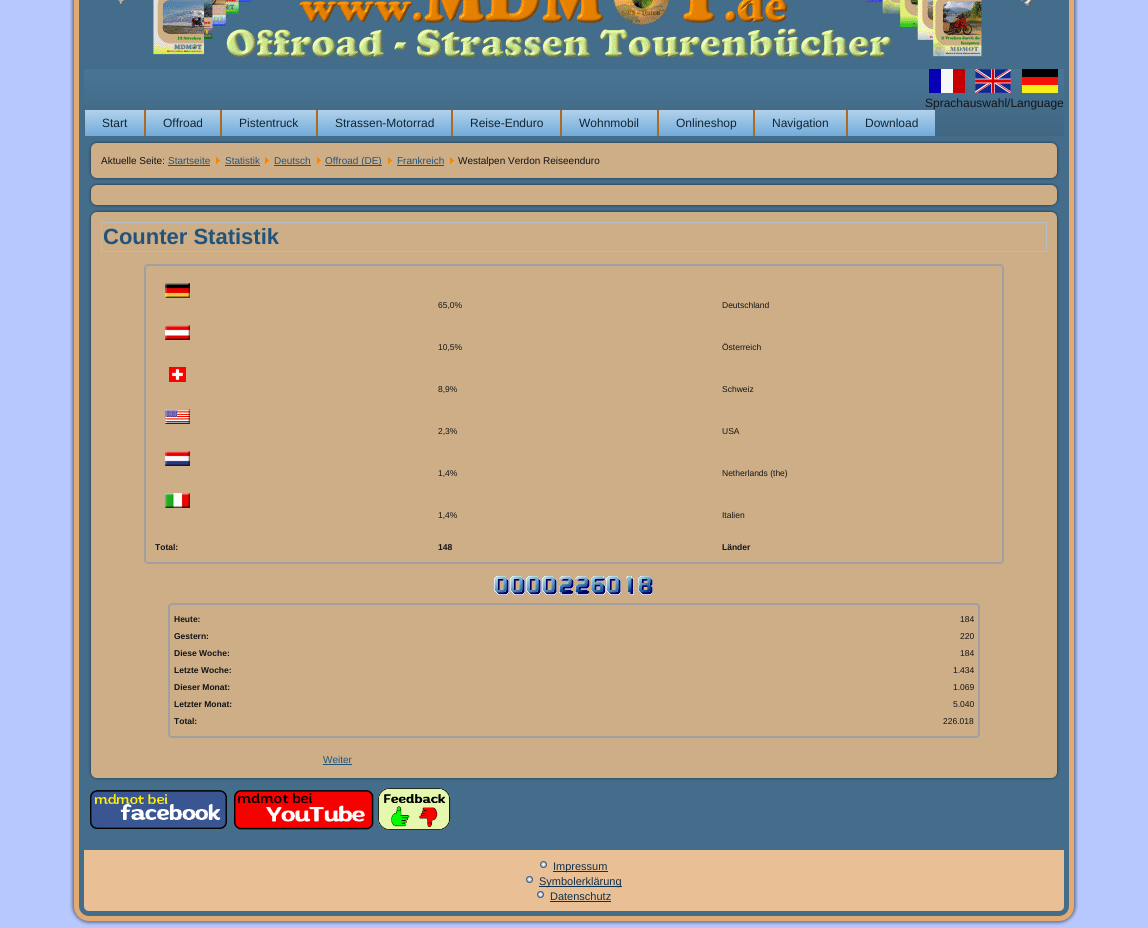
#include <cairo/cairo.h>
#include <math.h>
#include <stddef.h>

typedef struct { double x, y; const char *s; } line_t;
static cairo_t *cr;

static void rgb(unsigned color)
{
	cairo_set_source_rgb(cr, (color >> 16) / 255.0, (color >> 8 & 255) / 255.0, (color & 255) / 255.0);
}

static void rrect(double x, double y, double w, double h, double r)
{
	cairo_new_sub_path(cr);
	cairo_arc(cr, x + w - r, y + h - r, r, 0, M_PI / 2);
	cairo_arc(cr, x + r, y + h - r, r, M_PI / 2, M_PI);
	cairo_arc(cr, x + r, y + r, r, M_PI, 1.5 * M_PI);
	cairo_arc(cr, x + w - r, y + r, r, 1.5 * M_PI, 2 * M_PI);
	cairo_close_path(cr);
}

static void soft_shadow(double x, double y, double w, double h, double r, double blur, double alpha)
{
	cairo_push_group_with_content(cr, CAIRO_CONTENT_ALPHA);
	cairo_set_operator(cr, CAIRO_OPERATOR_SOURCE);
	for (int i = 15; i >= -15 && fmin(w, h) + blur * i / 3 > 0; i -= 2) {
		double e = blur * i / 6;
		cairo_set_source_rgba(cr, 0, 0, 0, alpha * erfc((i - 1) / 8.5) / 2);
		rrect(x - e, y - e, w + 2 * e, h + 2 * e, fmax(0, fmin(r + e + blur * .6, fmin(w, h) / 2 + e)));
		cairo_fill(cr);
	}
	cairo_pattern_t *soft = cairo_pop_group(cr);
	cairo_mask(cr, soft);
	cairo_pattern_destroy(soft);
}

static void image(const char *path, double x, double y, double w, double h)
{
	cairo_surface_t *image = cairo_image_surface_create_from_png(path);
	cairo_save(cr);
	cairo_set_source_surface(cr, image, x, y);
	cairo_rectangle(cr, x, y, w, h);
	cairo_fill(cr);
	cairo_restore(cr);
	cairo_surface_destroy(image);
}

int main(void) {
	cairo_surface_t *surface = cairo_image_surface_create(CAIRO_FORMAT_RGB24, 1148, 928);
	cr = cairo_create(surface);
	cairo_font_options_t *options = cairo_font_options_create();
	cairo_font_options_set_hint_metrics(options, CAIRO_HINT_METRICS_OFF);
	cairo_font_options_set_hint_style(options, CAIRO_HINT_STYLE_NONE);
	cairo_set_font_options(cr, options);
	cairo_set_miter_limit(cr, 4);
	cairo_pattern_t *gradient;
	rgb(0xb7c8ff);
	cairo_paint(cr);
	rgb(0x000000);
	soft_shadow(72, -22, 1004, 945, 17, 1.5, 0.4);
	rgb(0x446d8b);
	rrect(76.5, -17.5, 995, 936, 12.5);
	cairo_fill_preserve(cr);
	rgb(0xe2ab73);
	cairo_set_line_width(cr, 5);
	cairo_stroke(cr);
	image("img/1.png", 116, 0, 937, 59);
	gradient = cairo_pattern_create_linear(574, 69, 574, 136);
	cairo_pattern_add_color_stop_rgba(gradient, 0, 0.286, 0.459, 0.584, 1);
	cairo_pattern_add_color_stop_rgba(gradient, 1, 0.251, 0.4, 0.51, 1);
	cairo_set_source(cr, gradient);
	cairo_pattern_destroy(gradient);
	cairo_rectangle(cr, 84, 69, 980, 67);
	cairo_fill(cr);
	image("img/2.png", 929, 69, 36, 24);
	image("img/3.png", 975, 69, 36, 24);
	image("img/4.png", 1022, 69, 36, 24);
	gradient = cairo_pattern_create_linear(115, 110, 115, 136);
	cairo_pattern_add_color_stop_rgba(gradient, 0, 0.698, 0.82, 0.922, 1);
	cairo_pattern_add_color_stop_rgba(gradient, 1, 0.447, 0.671, 0.855, 1);
	cairo_set_source(cr, gradient);
	cairo_pattern_destroy(gradient);
	cairo_rectangle(cr, 85, 110, 59, 26);
	cairo_fill(cr);
	rgb(0xae6924);
	cairo_rectangle(cr, 144, 110, 2, 26);
	cairo_fill(cr);
	gradient = cairo_pattern_create_linear(183, 110, 183, 136);
	cairo_pattern_add_color_stop_rgba(gradient, 0, 0.698, 0.82, 0.922, 1);
	cairo_pattern_add_color_stop_rgba(gradient, 1, 0.447, 0.671, 0.855, 1);
	cairo_set_source(cr, gradient);
	cairo_pattern_destroy(gradient);
	cairo_rectangle(cr, 146, 110, 74, 26);
	cairo_fill(cr);
	rgb(0xae6924);
	cairo_rectangle(cr, 220, 110, 2, 26);
	cairo_fill(cr);
	gradient = cairo_pattern_create_linear(269, 110, 269, 136);
	cairo_pattern_add_color_stop_rgba(gradient, 0, 0.698, 0.82, 0.922, 1);
	cairo_pattern_add_color_stop_rgba(gradient, 1, 0.447, 0.671, 0.855, 1);
	cairo_set_source(cr, gradient);
	cairo_pattern_destroy(gradient);
	cairo_rectangle(cr, 222, 110, 94, 26);
	cairo_fill(cr);
	rgb(0xae6924);
	cairo_rectangle(cr, 316, 110, 2, 26);
	cairo_fill(cr);
	gradient = cairo_pattern_create_linear(385, 110, 385, 136);
	cairo_pattern_add_color_stop_rgba(gradient, 0, 0.698, 0.82, 0.922, 1);
	cairo_pattern_add_color_stop_rgba(gradient, 1, 0.447, 0.671, 0.855, 1);
	cairo_set_source(cr, gradient);
	cairo_pattern_destroy(gradient);
	cairo_rectangle(cr, 318, 110, 133, 26);
	cairo_fill(cr);
	rgb(0xae6924);
	cairo_rectangle(cr, 451, 110, 2, 26);
	cairo_fill(cr);
	gradient = cairo_pattern_create_linear(507, 110, 507, 136);
	cairo_pattern_add_color_stop_rgba(gradient, 0, 0.698, 0.82, 0.922, 1);
	cairo_pattern_add_color_stop_rgba(gradient, 1, 0.447, 0.671, 0.855, 1);
	cairo_set_source(cr, gradient);
	cairo_pattern_destroy(gradient);
	cairo_rectangle(cr, 453, 110, 107, 26);
	cairo_fill(cr);
	rgb(0xae6924);
	cairo_rectangle(cr, 560, 110, 2, 26);
	cairo_fill(cr);
	gradient = cairo_pattern_create_linear(610, 110, 610, 136);
	cairo_pattern_add_color_stop_rgba(gradient, 0, 0.698, 0.82, 0.922, 1);
	cairo_pattern_add_color_stop_rgba(gradient, 1, 0.447, 0.671, 0.855, 1);
	cairo_set_source(cr, gradient);
	cairo_pattern_destroy(gradient);
	cairo_rectangle(cr, 562, 110, 95, 26);
	cairo_fill(cr);
	rgb(0xae6924);
	cairo_rectangle(cr, 657, 110, 2, 26);
	cairo_fill(cr);
	gradient = cairo_pattern_create_linear(706, 110, 706, 136);
	cairo_pattern_add_color_stop_rgba(gradient, 0, 0.698, 0.82, 0.922, 1);
	cairo_pattern_add_color_stop_rgba(gradient, 1, 0.447, 0.671, 0.855, 1);
	cairo_set_source(cr, gradient);
	cairo_pattern_destroy(gradient);
	cairo_rectangle(cr, 659, 110, 94, 26);
	cairo_fill(cr);
	rgb(0xae6924);
	cairo_rectangle(cr, 753, 110, 2, 26);
	cairo_fill(cr);
	gradient = cairo_pattern_create_linear(801, 110, 801, 136);
	cairo_pattern_add_color_stop_rgba(gradient, 0, 0.698, 0.82, 0.922, 1);
	cairo_pattern_add_color_stop_rgba(gradient, 1, 0.447, 0.671, 0.855, 1);
	cairo_set_source(cr, gradient);
	cairo_pattern_destroy(gradient);
	cairo_rectangle(cr, 755, 110, 91, 26);
	cairo_fill(cr);
	rgb(0xae6924);
	cairo_rectangle(cr, 846, 110, 2, 26);
	cairo_fill(cr);
	gradient = cairo_pattern_create_linear(892, 110, 892, 136);
	cairo_pattern_add_color_stop_rgba(gradient, 0, 0.698, 0.82, 0.922, 1);
	cairo_pattern_add_color_stop_rgba(gradient, 1, 0.447, 0.671, 0.855, 1);
	cairo_set_source(cr, gradient);
	cairo_pattern_destroy(gradient);
	cairo_rectangle(cr, 848, 110, 87, 26);
	cairo_fill(cr);
	rgb(0x000000);
	soft_shadow(90, 142, 968, 37, 7, 1, 0.3);
	rgb(0xceae86);
	rrect(91, 143, 966, 35, 6);
	cairo_fill(cr);
	rgb(0x21547d);
	cairo_rectangle(cr, 168, 165, 42, 1);
	cairo_fill(cr);
	image("img/5.png", 216, 157, 4, 7);
	cairo_rectangle(cr, 225, 165, 35, 1);
	cairo_fill(cr);
	image("img/5.png", 265, 157, 4, 7);
	cairo_rectangle(cr, 274, 165, 37, 1);
	cairo_fill(cr);
	image("img/5.png", 317, 157, 4, 7);
	cairo_rectangle(cr, 325, 165, 57, 1);
	cairo_fill(cr);
	image("img/5.png", 388, 157, 4, 7);
	cairo_rectangle(cr, 397, 165, 47, 1);
	cairo_fill(cr);
	image("img/5.png", 450, 157, 4, 7);
	rgb(0x000000);
	soft_shadow(90, 184, 968, 22, 7, 1, 0.3);
	rgb(0xceae86);
	rrect(91, 185, 966, 20, 6);
	cairo_fill(cr);
	rgb(0x000000);
	soft_shadow(90, 211, 968, 568, 7, 1, 0.3);
	rgb(0xceae86);
	rrect(91, 212, 966, 566, 6);
	cairo_fill(cr);
	cairo_rectangle(cr, 101.5, 222.5, 945, 29);
	rgb(0xb5bdc4);
	cairo_set_line_width(cr, 1);
	cairo_stroke(cr);
	rrect(145, 265, 858, 298, 3);
	rgb(0xa0a0a0);
	cairo_set_line_width(cr, 2);
	cairo_stroke(cr);
	image("img/6.png", 165, 283, 25, 15);
	image("img/7.png", 165, 325, 25, 15);
	image("img/8.png", 169, 367, 17, 15);
	image("img/9.png", 165, 409, 25, 15);
	image("img/10.png", 165, 451, 25, 15);
	image("img/11.png", 165, 493, 25, 15);
	image("img/12.png", 494, 576, 15, 19);
	image("img/12.png", 510, 576, 15, 19);
	image("img/12.png", 526, 576, 15, 19);
	image("img/12.png", 542, 576, 15, 19);
	image("img/13.png", 559, 576, 15, 19);
	image("img/13.png", 575, 576, 15, 19);
	image("img/14.png", 591, 576, 15, 19);
	image("img/12.png", 606, 576, 15, 19);
	image("img/15.png", 626, 576, 8, 19);
	image("img/16.png", 638, 576, 15, 19);
	rrect(169, 604, 810, 133, 3);
	cairo_stroke(cr);
	rgb(0x21547d);
	cairo_rectangle(cr, 323, 764, 29, 1);
	cairo_fill(cr);
	image("img/17.png", 90, 790, 137, 39);
	image("img/18.png", 234, 790, 140, 40);
	image("img/19.png", 378, 788, 73, 42);
	rgb(0xe9bf95);
	cairo_new_path(cr);
	cairo_move_to(cr, 84, 850);
	cairo_line_to(cr, 1064, 850);
	cairo_line_to(cr, 1064, 906);
	cairo_curve_to(cr, 1064, 909, 1062, 911, 1059, 911);
	cairo_line_to(cr, 89, 911);
	cairo_curve_to(cr, 86, 911, 84, 909, 84, 906);
	cairo_close_path(cr);
	cairo_fill(cr);
	image("img/20.png", 540, 861, 7, 7);
	rgb(0x133149);
	cairo_rectangle(cr, 553, 871, 55, 1);
	cairo_fill(cr);
	image("img/20.png", 526, 876, 7, 7);
	cairo_rectangle(cr, 539, 886, 83, 1);
	cairo_fill(cr);
	image("img/20.png", 537, 891, 7, 7);
	cairo_rectangle(cr, 550, 901, 61, 1);
	cairo_fill(cr);
	cairo_select_font_face(cr, "Liberation Sans", CAIRO_FONT_SLANT_NORMAL, CAIRO_FONT_WEIGHT_NORMAL);
	cairo_set_font_size(cr, 12);
	rgb(0x121417);
	cairo_move_to(cr, 925, 107);
	cairo_show_text(cr, "Sprachauswahl/Language");
	rgb(0x0f2638);
	{
		static const line_t items[] = {
			{102, 127, "Start"},
			{163, 127, "Offroad"},
			{239, 127, "Pistentruck"},
			{335, 127, "Strassen-Motorrad"},
			{470, 127, "Reise-Enduro"},
			{579, 127, "Wohnmobil"},
			{676, 127, "Onlineshop"},
			{772, 127, "Navigation"},
			{865, 127, "Download"},
		};
		for (size_t i = 0; i < sizeof items / sizeof *items; i++) {
			cairo_move_to(cr, items[i].x, items[i].y);
			cairo_show_text(cr, items[i].s);
		}
	}
	cairo_set_font_size(cr, 10);
	rgb(0x121417);
	cairo_move_to(cr, 101, 164);
	cairo_show_text(cr, "Aktuelle Seite:");
	rgb(0x21547d);
	{
		static const line_t items[] = {
			{168, 164, "Startseite"},
			{225, 164, "Statistik"},
			{274, 164, "Deutsch"},
			{325, 164, "Offroad (DE)"},
			{397, 164, "Frankreich"},
		};
		for (size_t i = 0; i < sizeof items / sizeof *items; i++) {
			cairo_move_to(cr, items[i].x, items[i].y);
			cairo_show_text(cr, items[i].s);
		}
	}
	rgb(0x121417);
	cairo_move_to(cr, 458, 164);
	cairo_show_text(cr, "Westalpen Verdon Reiseenduro");
	cairo_select_font_face(cr, "Liberation Sans", CAIRO_FONT_SLANT_NORMAL, CAIRO_FONT_WEIGHT_BOLD);
	cairo_set_font_size(cr, 22);
	rgb(0x21547d);
	cairo_move_to(cr, 103, 244);
	cairo_show_text(cr, "Counter Statistik");
	cairo_select_font_face(cr, "Liberation Sans", CAIRO_FONT_SLANT_NORMAL, CAIRO_FONT_WEIGHT_NORMAL);
	cairo_set_font_size(cr, 8.5);
	rgb(0x121417);
	{
		static const line_t items[] = {
			{438, 308, "65,0%"},
			{722, 308, "Deutschland"},
			{438, 350, "10,5%"},
			{722, 350, "Österreich"},
			{438, 392, "8,9%"},
			{722, 392, "Schweiz"},
			{438, 434, "2,3%"},
			{722, 434, "USA"},
			{438, 476, "1,4%"},
			{722, 476, "Netherlands (the)"},
			{438, 518, "1,4%"},
			{722, 518, "Italien"},
		};
		for (size_t i = 0; i < sizeof items / sizeof *items; i++) {
			cairo_move_to(cr, items[i].x, items[i].y);
			cairo_show_text(cr, items[i].s);
		}
	}
	cairo_select_font_face(cr, "Liberation Sans", CAIRO_FONT_SLANT_NORMAL, CAIRO_FONT_WEIGHT_BOLD);
	{
		static const line_t items[] = {
			{155, 550, "Total:"},
			{438, 550, "148"},
			{722, 550, "Länder"},
			{174, 622, "Heute:"},
		};
		for (size_t i = 0; i < sizeof items / sizeof *items; i++) {
			cairo_move_to(cr, items[i].x, items[i].y);
			cairo_show_text(cr, items[i].s);
		}
	}
	cairo_select_font_face(cr, "Liberation Sans", CAIRO_FONT_SLANT_NORMAL, CAIRO_FONT_WEIGHT_NORMAL);
	cairo_move_to(cr, 960, 622);
	cairo_show_text(cr, "184");
	cairo_select_font_face(cr, "Liberation Sans", CAIRO_FONT_SLANT_NORMAL, CAIRO_FONT_WEIGHT_BOLD);
	cairo_move_to(cr, 174, 639);
	cairo_show_text(cr, "Gestern:");
	cairo_select_font_face(cr, "Liberation Sans", CAIRO_FONT_SLANT_NORMAL, CAIRO_FONT_WEIGHT_NORMAL);
	cairo_move_to(cr, 960, 639);
	cairo_show_text(cr, "220");
	cairo_select_font_face(cr, "Liberation Sans", CAIRO_FONT_SLANT_NORMAL, CAIRO_FONT_WEIGHT_BOLD);
	cairo_move_to(cr, 174, 656);
	cairo_show_text(cr, "Diese Woche:");
	cairo_select_font_face(cr, "Liberation Sans", CAIRO_FONT_SLANT_NORMAL, CAIRO_FONT_WEIGHT_NORMAL);
	cairo_move_to(cr, 960, 656);
	cairo_show_text(cr, "184");
	cairo_select_font_face(cr, "Liberation Sans", CAIRO_FONT_SLANT_NORMAL, CAIRO_FONT_WEIGHT_BOLD);
	cairo_move_to(cr, 174, 673);
	cairo_show_text(cr, "Letzte Woche:");
	cairo_select_font_face(cr, "Liberation Sans", CAIRO_FONT_SLANT_NORMAL, CAIRO_FONT_WEIGHT_NORMAL);
	cairo_move_to(cr, 953, 673);
	cairo_show_text(cr, "1.434");
	cairo_select_font_face(cr, "Liberation Sans", CAIRO_FONT_SLANT_NORMAL, CAIRO_FONT_WEIGHT_BOLD);
	cairo_move_to(cr, 174, 690);
	cairo_show_text(cr, "Dieser Monat:");
	cairo_select_font_face(cr, "Liberation Sans", CAIRO_FONT_SLANT_NORMAL, CAIRO_FONT_WEIGHT_NORMAL);
	cairo_move_to(cr, 953, 690);
	cairo_show_text(cr, "1.069");
	cairo_select_font_face(cr, "Liberation Sans", CAIRO_FONT_SLANT_NORMAL, CAIRO_FONT_WEIGHT_BOLD);
	cairo_move_to(cr, 174, 707);
	cairo_show_text(cr, "Letzter Monat:");
	cairo_select_font_face(cr, "Liberation Sans", CAIRO_FONT_SLANT_NORMAL, CAIRO_FONT_WEIGHT_NORMAL);
	cairo_move_to(cr, 953, 707);
	cairo_show_text(cr, "5.040");
	cairo_select_font_face(cr, "Liberation Sans", CAIRO_FONT_SLANT_NORMAL, CAIRO_FONT_WEIGHT_BOLD);
	cairo_move_to(cr, 174, 724);
	cairo_show_text(cr, "Total:");
	cairo_select_font_face(cr, "Liberation Sans", CAIRO_FONT_SLANT_NORMAL, CAIRO_FONT_WEIGHT_NORMAL);
	cairo_move_to(cr, 943, 724);
	cairo_show_text(cr, "226.018");
	cairo_set_font_size(cr, 10);
	rgb(0x21547d);
	cairo_move_to(cr, 323, 763);
	cairo_show_text(cr, "Weiter");
	cairo_set_font_size(cr, 11);
	rgb(0x133149);
	{
		static const line_t items[] = {
			{553, 870, "Impressum"},
			{539, 885, "Symbolerklärung"},
			{550, 900, "Datenschutz"},
		};
		for (size_t i = 0; i < sizeof items / sizeof *items; i++) {
			cairo_move_to(cr, items[i].x, items[i].y);
			cairo_show_text(cr, items[i].s);
		}
	}
	cairo_surface_write_to_png(surface, "page.png");
	cairo_font_options_destroy(options);
	cairo_destroy(cr);
	cairo_surface_destroy(surface);
	return 0;
}
